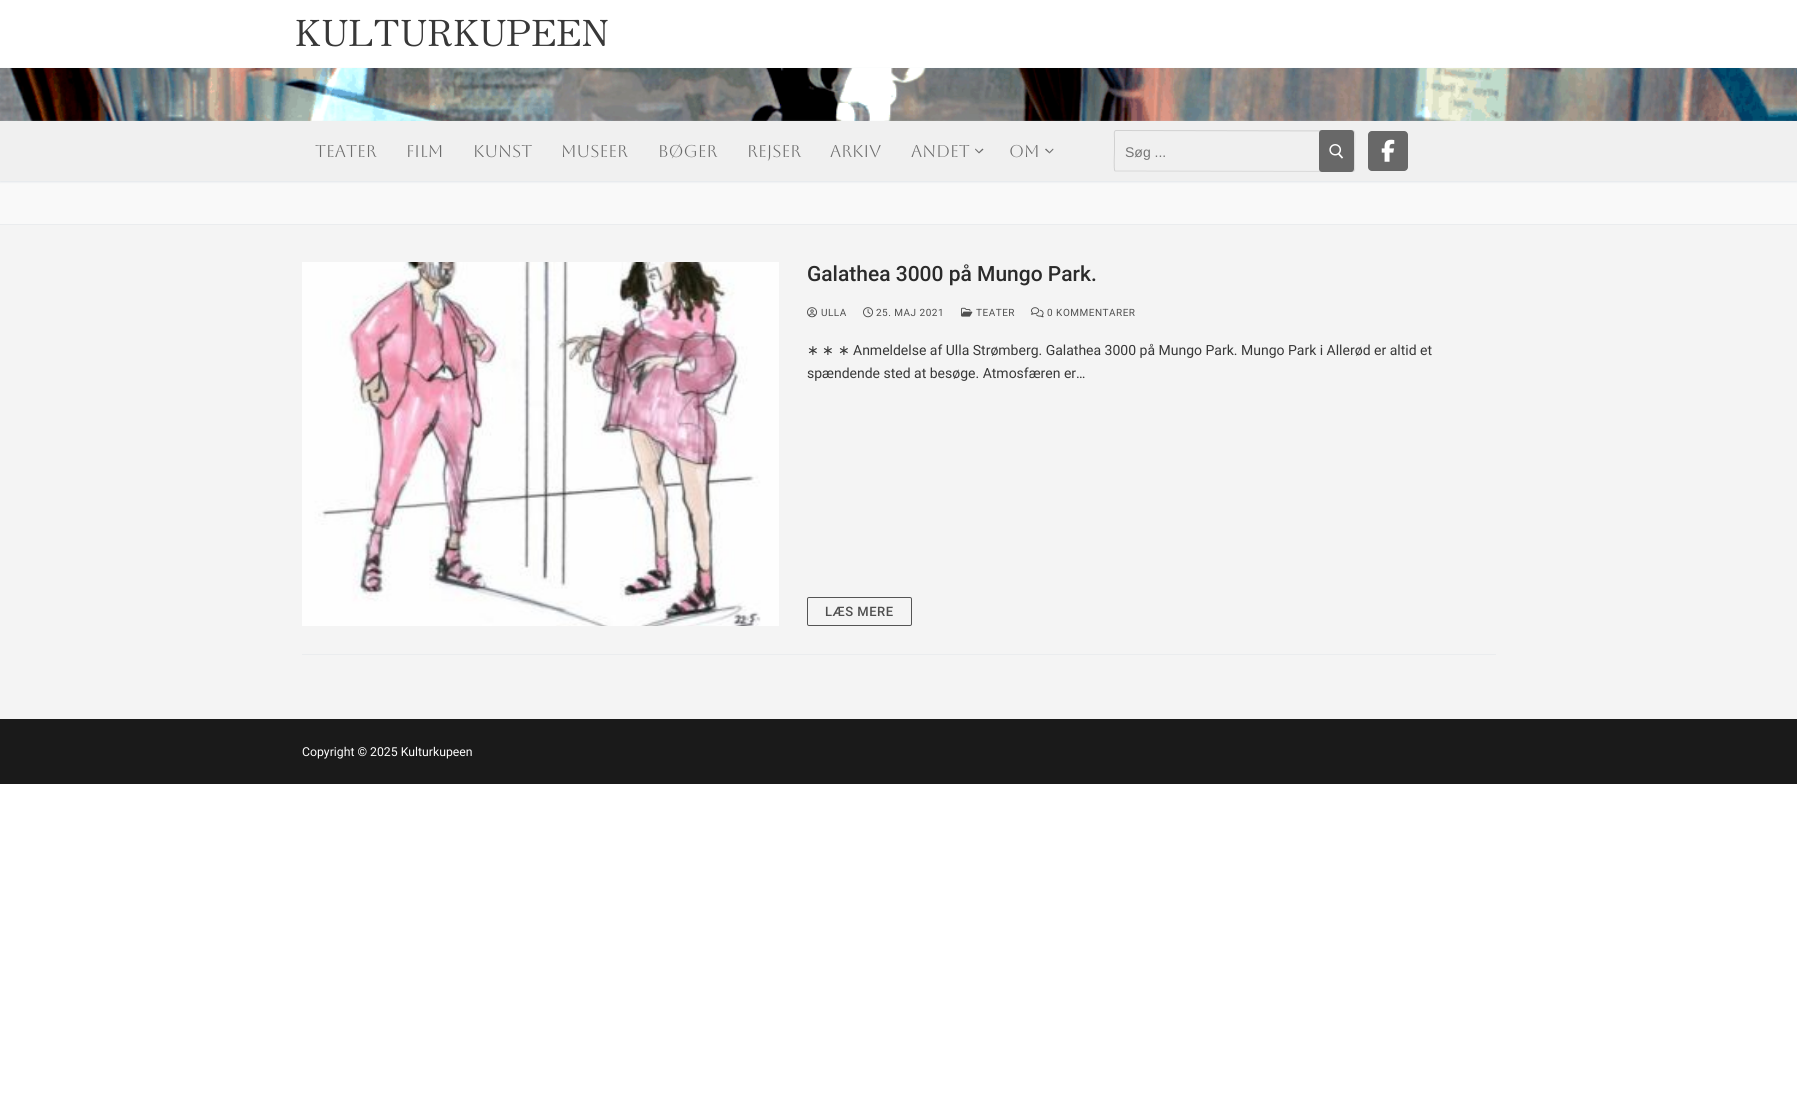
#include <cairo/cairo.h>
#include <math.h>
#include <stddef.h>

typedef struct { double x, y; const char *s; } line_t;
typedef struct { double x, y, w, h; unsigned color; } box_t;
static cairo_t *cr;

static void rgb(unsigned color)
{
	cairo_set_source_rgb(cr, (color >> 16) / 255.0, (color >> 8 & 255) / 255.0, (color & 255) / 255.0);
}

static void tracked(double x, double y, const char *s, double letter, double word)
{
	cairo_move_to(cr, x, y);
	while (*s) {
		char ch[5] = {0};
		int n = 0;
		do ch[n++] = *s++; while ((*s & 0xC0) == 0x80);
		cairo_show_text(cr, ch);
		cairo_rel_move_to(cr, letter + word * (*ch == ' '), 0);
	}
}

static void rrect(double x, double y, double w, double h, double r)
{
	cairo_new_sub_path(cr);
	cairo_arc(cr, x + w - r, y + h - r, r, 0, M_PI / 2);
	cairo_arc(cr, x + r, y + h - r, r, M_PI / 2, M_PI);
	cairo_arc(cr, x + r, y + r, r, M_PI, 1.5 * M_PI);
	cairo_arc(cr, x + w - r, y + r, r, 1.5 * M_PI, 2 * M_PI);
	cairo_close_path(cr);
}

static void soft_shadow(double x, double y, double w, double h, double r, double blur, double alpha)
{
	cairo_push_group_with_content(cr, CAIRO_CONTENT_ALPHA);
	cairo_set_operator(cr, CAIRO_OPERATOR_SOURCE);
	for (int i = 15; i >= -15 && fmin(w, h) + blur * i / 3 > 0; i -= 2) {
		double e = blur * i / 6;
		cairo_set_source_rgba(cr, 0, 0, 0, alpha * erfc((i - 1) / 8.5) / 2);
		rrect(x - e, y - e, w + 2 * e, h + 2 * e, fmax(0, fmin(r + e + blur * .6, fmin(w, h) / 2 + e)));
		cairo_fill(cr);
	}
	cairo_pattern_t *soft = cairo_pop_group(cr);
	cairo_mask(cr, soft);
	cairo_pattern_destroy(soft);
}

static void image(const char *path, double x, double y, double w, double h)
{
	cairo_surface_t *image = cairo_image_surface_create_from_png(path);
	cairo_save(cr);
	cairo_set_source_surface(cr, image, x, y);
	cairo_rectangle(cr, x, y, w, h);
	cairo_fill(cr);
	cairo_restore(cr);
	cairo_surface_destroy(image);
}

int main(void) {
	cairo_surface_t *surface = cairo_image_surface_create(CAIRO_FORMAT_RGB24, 1797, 1103);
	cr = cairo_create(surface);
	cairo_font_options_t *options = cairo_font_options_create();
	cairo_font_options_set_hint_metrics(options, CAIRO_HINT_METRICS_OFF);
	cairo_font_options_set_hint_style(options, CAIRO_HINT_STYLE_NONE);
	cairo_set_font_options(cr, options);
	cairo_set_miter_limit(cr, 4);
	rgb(0xffffff);
	cairo_paint(cr);
	rgb(0xe1e5ea);
	soft_shadow(0, 69, 1797, 53, 0, 1, 1);
	image("img/1.png", 0, 68, 1797, 53);
	rgb(0xf9f9f9);
	cairo_rectangle(cr, 0, 181, 1797, 43);
	cairo_fill(cr);
	rgb(0xe1e5ea);
	soft_shadow(0, 122, 1797, 60, 0, 1, 1);
	rgb(0xf0f0f0);
	cairo_rectangle(cr, 0, 121, 1797, 60);
	cairo_fill(cr);
	rgb(0x6c6c6c);
	cairo_new_path(cr);
	cairo_move_to(cr, 979, 153.5);
	cairo_line_to(cr, 975, 149.5);
	cairo_line_to(cr, 975.5, 148.5);
	cairo_line_to(cr, 979, 152);
	cairo_close_path(cr);
	cairo_move_to(cr, 983.5, 149.5);
	cairo_line_to(cr, 979, 153.5);
	cairo_line_to(cr, 979, 152);
	cairo_line_to(cr, 982.5, 148.5);
	cairo_close_path(cr);
	cairo_fill(cr);
	cairo_new_path(cr);
	cairo_move_to(cr, 1049.5, 153.5);
	cairo_line_to(cr, 1045, 149.5);
	cairo_line_to(cr, 1046, 148.5);
	cairo_line_to(cr, 1049.5, 152);
	cairo_close_path(cr);
	cairo_fill(cr);
	cairo_set_source_rgba(cr, 0, 0, 0, 0.55);
	cairo_new_path(cr);
	cairo_move_to(cr, 1053.5, 149.5);
	cairo_line_to(cr, 1049.5, 153.5);
	cairo_line_to(cr, 1049.5, 152);
	cairo_line_to(cr, 1053, 148.5);
	cairo_close_path(cr);
	cairo_fill(cr);
	cairo_new_path(cr);
	cairo_move_to(cr, 1354, 131);
	cairo_curve_to(cr, 1355.5, 132.5, 1354.5, 148, 1354.5, 151);
	cairo_line_to(cr, 1354.5, 163.5);
	cairo_curve_to(cr, 1354.5, 166.5, 1355.5, 171.5, 1353, 171.5);
	cairo_line_to(cr, 1115, 171);
	rgb(0xd9d9d9);
	cairo_set_line_width(cr, 1);
	cairo_stroke(cr);
	cairo_new_path(cr);
	cairo_move_to(cr, 1115, 171);
	cairo_curve_to(cr, 1113.5, 169.5, 1114.5, 154, 1114.5, 151);
	cairo_line_to(cr, 1114.5, 138.5);
	cairo_curve_to(cr, 1114.5, 135.5, 1113.5, 130.5, 1116, 130.5);
	cairo_line_to(cr, 1354, 131);
	rgb(0xd1d1d1);
	cairo_stroke(cr);
	rgb(0x686868);
	rrect(1319, 130, 35, 42, 3);
	cairo_fill(cr);
	image("img/2.png", 1329, 144, 15, 15);
	rrect(1368, 131, 40, 40, 4);
	cairo_fill(cr);
	image("img/3.png", 1381, 139, 14, 23);
	{
		static const box_t items[] = {
			{0, 224, 1797, 1, 0xeaecee},
			{0, 225, 1797, 494, 0xf4f4f4},
			{302, 654, 1194, 1, 0xeaecee},
		};
		for (size_t i = 0; i < sizeof items / sizeof *items; i++) {
			rgb(items[i].color);
			cairo_rectangle(cr, items[i].x, items[i].y, items[i].w, items[i].h);
			cairo_fill(cr);
		}
	}
	image("img/4.png", 302, 262, 477, 364);
	image("img/5.png", 807, 307, 11, 11);
	image("img/6.png", 863, 307, 11, 11);
	image("img/7.png", 961, 307, 12, 10);
	image("img/8.png", 1031, 307, 13, 11);
	rrect(807.5, 597.5, 104, 28, 1.5);
	rgb(0x545454);
	cairo_stroke(cr);
	rgb(0x1a1a1a);
	cairo_rectangle(cr, 0, 719, 1797, 65);
	cairo_fill(cr);
	cairo_select_font_face(cr, "Zen Old Mincho", CAIRO_FONT_SLANT_NORMAL, CAIRO_FONT_WEIGHT_NORMAL);
	cairo_set_font_size(cr, 36);
	rgb(0x383838);
	tracked(295, 46, "KULTURKUPEEN", 0.4, 0);
	cairo_select_font_face(cr, "Aboreto", CAIRO_FONT_SLANT_NORMAL, CAIRO_FONT_WEIGHT_NORMAL);
	cairo_set_font_size(cr, 17);
	rgb(0x6c6c6c);
	{
		static const line_t items[] = {
			{315, 157, "TEATER"},
			{406, 157, "FILM"},
			{473, 157, "KUNST"},
			{561, 157, "MUSEER"},
			{658, 157, "BØGER"},
			{747, 157, "REJSER"},
			{830, 157, "ARKIV"},
			{911, 157, "ANDET"},
			{1009, 157, "OM"},
		};
		for (size_t i = 0; i < sizeof items / sizeof *items; i++) {
			cairo_move_to(cr, items[i].x, items[i].y);
			cairo_show_text(cr, items[i].s);
		}
	}
	cairo_select_font_face(cr, "Liberation Sans", CAIRO_FONT_SLANT_NORMAL, CAIRO_FONT_WEIGHT_NORMAL);
	cairo_set_font_size(cr, 14);
	rgb(0x757575);
	cairo_move_to(cr, 1125, 157);
	cairo_show_text(cr, "Søg ...");
	cairo_select_font_face(cr, "Roboto Medium", CAIRO_FONT_SLANT_NORMAL, CAIRO_FONT_WEIGHT_NORMAL);
	cairo_set_font_size(cr, 21);
	rgb(0x2b2b2b);
	cairo_move_to(cr, 807, 281);
	cairo_show_text(cr, "Galathea 3000 på Mungo Park.");
	cairo_select_font_face(cr, "Roboto", CAIRO_FONT_SLANT_NORMAL, CAIRO_FONT_WEIGHT_NORMAL);
	cairo_set_font_size(cr, 10);
	rgb(0x4f4f4f);
	{
		static const line_t items[] = {
			{821, 316, "ULLA"},
			{876, 316, "25. MAJ 2021"},
			{976, 316, "TEATER"},
			{1047, 316, "0 KOMMENTARER"},
		};
		for (size_t i = 0; i < sizeof items / sizeof *items; i++) {
			tracked(items[i].x, items[i].y, items[i].s, 0.5, 0);
		}
	}
	cairo_select_font_face(cr, "DejaVu Sans", CAIRO_FONT_SLANT_NORMAL, CAIRO_FONT_WEIGHT_NORMAL);
	cairo_set_font_size(cr, 14);
	rgb(0x383838);
	{
		static const line_t items[] = {
			{807, 355, "∗"},
			{822, 355, "∗"},
			{838, 355, "∗"},
		};
		for (size_t i = 0; i < sizeof items / sizeof *items; i++) {
			cairo_move_to(cr, items[i].x, items[i].y);
			cairo_show_text(cr, items[i].s);
		}
	}
	cairo_select_font_face(cr, "Roboto", CAIRO_FONT_SLANT_NORMAL, CAIRO_FONT_WEIGHT_NORMAL);
	cairo_move_to(cr, 853, 355);
	cairo_show_text(cr, "Anmeldelse af Ulla Strømberg. Galathea 3000 på Mungo Park. Mungo Park i Allerød er altid et");
	cairo_move_to(cr, 807, 378);
	cairo_show_text(cr, "spændende sted at besøge. Atmosfæren er…");
	cairo_select_font_face(cr, "Roboto Medium", CAIRO_FONT_SLANT_NORMAL, CAIRO_FONT_WEIGHT_NORMAL);
	cairo_set_font_size(cr, 13);
	rgb(0x4f4f4f);
	tracked(825, 616, "LÆS MERE", 0.5, 0);
	cairo_select_font_face(cr, "Roboto", CAIRO_FONT_SLANT_NORMAL, CAIRO_FONT_WEIGHT_NORMAL);
	cairo_set_font_size(cr, 12.25);
	rgb(0xfdfdfd);
	cairo_move_to(cr, 302, 756);
	cairo_show_text(cr, "Copyright © 2025 Kulturkupeen");
	cairo_surface_write_to_png(surface, "page.png");
	cairo_font_options_destroy(options);
	cairo_destroy(cr);
	cairo_surface_destroy(surface);
	return 0;
}
